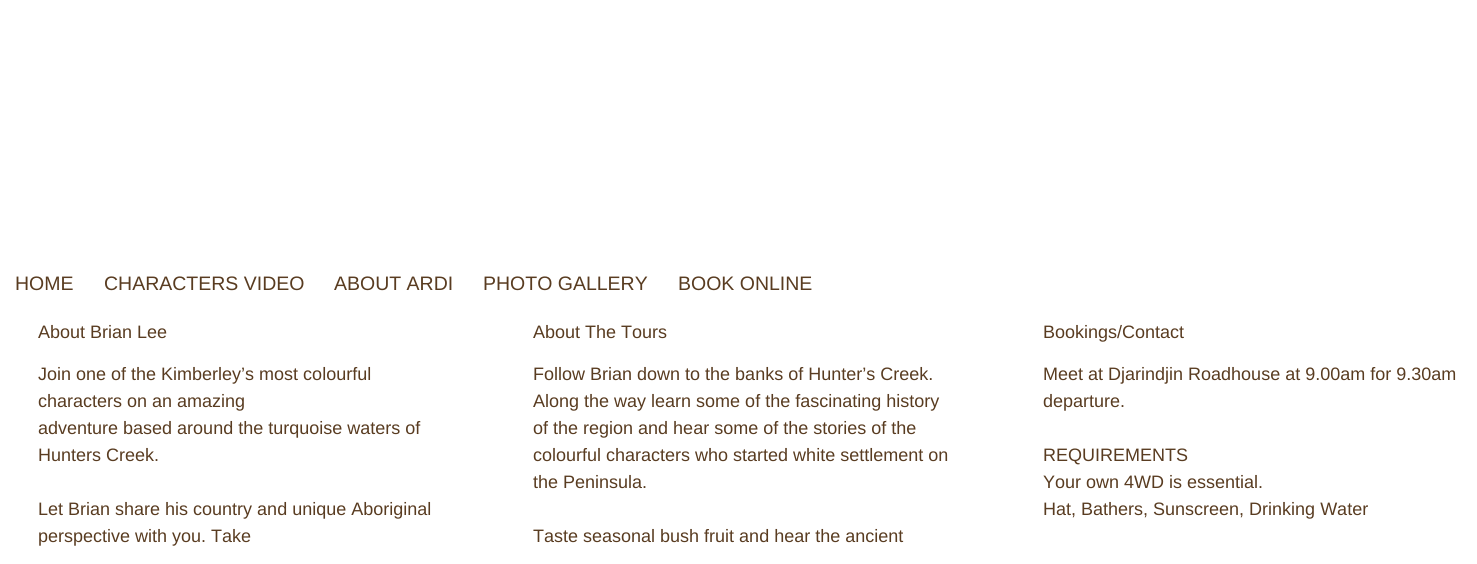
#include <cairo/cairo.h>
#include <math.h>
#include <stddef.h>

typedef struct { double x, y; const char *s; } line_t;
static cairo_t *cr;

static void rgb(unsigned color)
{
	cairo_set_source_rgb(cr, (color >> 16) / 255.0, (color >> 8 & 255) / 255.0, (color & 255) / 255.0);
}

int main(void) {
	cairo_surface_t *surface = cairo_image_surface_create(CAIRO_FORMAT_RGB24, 1477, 564);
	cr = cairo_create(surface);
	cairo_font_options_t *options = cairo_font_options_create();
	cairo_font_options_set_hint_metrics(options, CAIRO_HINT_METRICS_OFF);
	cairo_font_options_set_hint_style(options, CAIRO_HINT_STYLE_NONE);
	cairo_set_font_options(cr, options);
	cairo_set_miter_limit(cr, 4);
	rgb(0xffffff);
	cairo_paint(cr);
	cairo_select_font_face(cr, "Liberation Sans", CAIRO_FONT_SLANT_NORMAL, CAIRO_FONT_WEIGHT_NORMAL);
	cairo_set_font_size(cr, 19.5);
	rgb(0x593c21);
	{
		static const line_t items[] = {
			{15, 290, "HOME"},
			{104, 290, "CHARACTERS VIDEO"},
			{334, 290, "ABOUT ARDI"},
			{483, 290, "PHOTO GALLERY"},
			{678, 290, "BOOK ONLINE"},
		};
		for (size_t i = 0; i < sizeof items / sizeof *items; i++) {
			cairo_move_to(cr, items[i].x, items[i].y);
			cairo_show_text(cr, items[i].s);
		}
	}
	cairo_set_font_size(cr, 18);
	{
		static const line_t items[] = {
			{38, 338, "About Brian Lee"},
			{38, 380, "Join one of the Kimberley’s most colourful"},
			{38, 407, "characters on an amazing"},
			{38, 434, "adventure based around the turquoise waters of"},
			{38, 461, "Hunters Creek."},
			{38, 515, "Let Brian share his country and unique Aboriginal"},
			{38, 542, "perspective with you. Take"},
			{533, 338, "About The Tours"},
			{533, 380, "Follow Brian down to the banks of Hunter’s Creek."},
			{533, 407, "Along the way learn some of the fascinating history"},
			{533, 434, "of the region and hear some of the stories of the"},
			{533, 461, "colourful characters who started white settlement on"},
			{533, 488, "the Peninsula."},
			{533, 542, "Taste seasonal bush fruit and hear the ancient"},
			{1043, 338, "Bookings/Contact"},
			{1043, 380, "Meet at Djarindjin Roadhouse at 9.00am for 9.30am"},
			{1043, 407, "departure."},
			{1043, 461, "REQUIREMENTS"},
			{1043, 488, "Your own 4WD is essential."},
			{1043, 515, "Hat, Bathers, Sunscreen, Drinking Water"},
		};
		for (size_t i = 0; i < sizeof items / sizeof *items; i++) {
			cairo_move_to(cr, items[i].x, items[i].y);
			cairo_show_text(cr, items[i].s);
		}
	}
	cairo_surface_write_to_png(surface, "page.png");
	cairo_font_options_destroy(options);
	cairo_destroy(cr);
	cairo_surface_destroy(surface);
	return 0;
}
